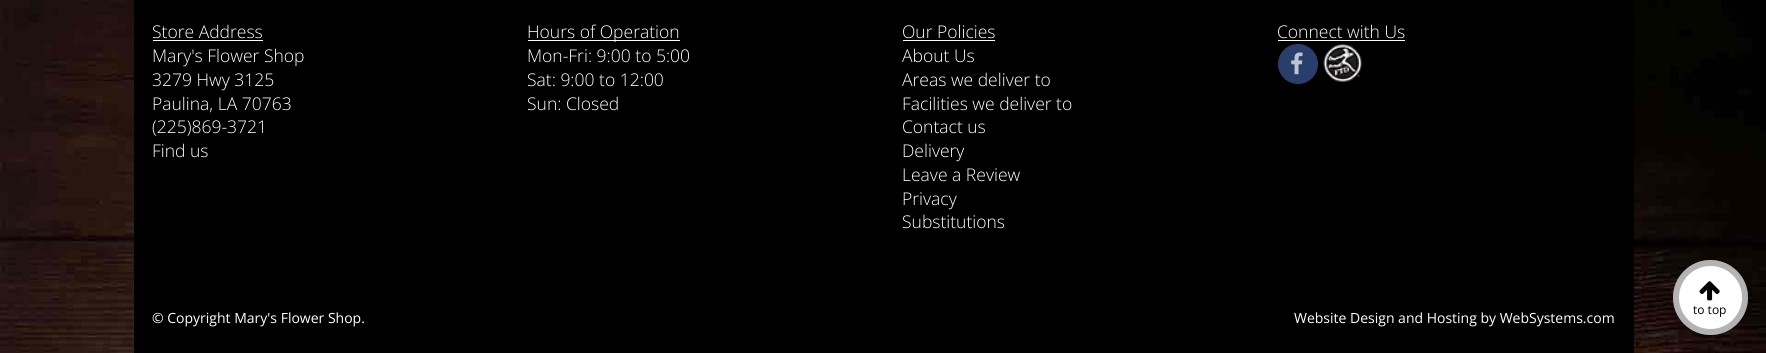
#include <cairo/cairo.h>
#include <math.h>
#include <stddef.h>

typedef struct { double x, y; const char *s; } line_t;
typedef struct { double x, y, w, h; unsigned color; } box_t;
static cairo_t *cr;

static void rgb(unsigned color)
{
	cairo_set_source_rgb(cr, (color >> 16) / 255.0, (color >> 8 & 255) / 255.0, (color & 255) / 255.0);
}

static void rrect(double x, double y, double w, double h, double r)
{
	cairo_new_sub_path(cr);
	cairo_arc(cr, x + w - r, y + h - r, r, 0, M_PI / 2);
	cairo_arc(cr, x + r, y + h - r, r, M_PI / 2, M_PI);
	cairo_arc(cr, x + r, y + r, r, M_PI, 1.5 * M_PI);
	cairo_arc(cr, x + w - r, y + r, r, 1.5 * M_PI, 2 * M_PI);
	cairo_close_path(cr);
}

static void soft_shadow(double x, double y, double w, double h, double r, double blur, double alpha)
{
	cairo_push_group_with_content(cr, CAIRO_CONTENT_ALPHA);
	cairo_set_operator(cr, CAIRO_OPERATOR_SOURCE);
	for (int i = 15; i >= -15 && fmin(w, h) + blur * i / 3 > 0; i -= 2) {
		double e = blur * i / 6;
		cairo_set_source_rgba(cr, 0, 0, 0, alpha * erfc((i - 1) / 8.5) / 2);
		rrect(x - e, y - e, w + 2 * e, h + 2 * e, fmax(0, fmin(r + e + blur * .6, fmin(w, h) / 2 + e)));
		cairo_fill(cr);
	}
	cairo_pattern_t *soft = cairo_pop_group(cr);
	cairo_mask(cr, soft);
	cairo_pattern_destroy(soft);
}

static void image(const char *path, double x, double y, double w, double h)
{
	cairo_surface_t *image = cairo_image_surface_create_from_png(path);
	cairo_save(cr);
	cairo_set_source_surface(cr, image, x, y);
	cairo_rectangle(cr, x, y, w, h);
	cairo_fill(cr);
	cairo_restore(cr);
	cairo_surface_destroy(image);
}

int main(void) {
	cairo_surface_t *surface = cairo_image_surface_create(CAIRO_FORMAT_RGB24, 1766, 353);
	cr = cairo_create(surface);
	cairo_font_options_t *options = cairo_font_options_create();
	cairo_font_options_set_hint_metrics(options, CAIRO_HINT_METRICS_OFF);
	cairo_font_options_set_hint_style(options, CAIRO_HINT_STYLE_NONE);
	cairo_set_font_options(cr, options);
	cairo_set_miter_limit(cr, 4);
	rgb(0xffffff);
	cairo_paint(cr);
	image("img/1.png", 0, 0, 1766, 353);
	{
		static const box_t items[] = {
			{134, 0, 1500, 353, 0x000000},
			{153, 40, 110, 1, 0xffffff},
			{528, 40, 152, 1, 0xffffff},
			{903, 40, 92, 1, 0xffffff},
			{1278, 40, 127, 1, 0xffffff},
		};
		for (size_t i = 0; i < sizeof items / sizeof *items; i++) {
			rgb(items[i].color);
			cairo_rectangle(cr, items[i].x, items[i].y, items[i].w, items[i].h);
			cairo_fill(cr);
		}
	}
	rgb(0x293e6a);
	cairo_arc(cr, 1298, 64, 20, 0, 2 * M_PI);
	cairo_fill(cr);
	image("img/2.png", 1291, 52, 12, 23);
	image("img/3.png", 1323, 44, 39, 38);
	rgb(0x000000);
	soft_shadow(1673, 261, 75, 75, 37.5, 0.5, 0.3);
	rgb(0xffffff);
	cairo_arc(cr, 1710.5, 297.5, 37.5, 0, 2 * M_PI);
	cairo_fill(cr);
	cairo_arc(cr, 1710.5, 297.5, 34.5, 0, 2 * M_PI);
	cairo_set_source_rgba(cr, 0, 0, 0, 0.3);
	cairo_set_line_width(cr, 6);
	cairo_stroke(cr);
	image("img/4.png", 1699, 281, 21, 20);
	cairo_select_font_face(cr, "Open Sans Light", CAIRO_FONT_SLANT_NORMAL, CAIRO_FONT_WEIGHT_NORMAL);
	cairo_set_font_size(cr, 17.5);
	rgb(0xffffff);
	{
		static const line_t items[] = {
			{152, 38, "Store Address"},
			{152, 62, "Mary's Flower Shop"},
			{152, 86, "3279 Hwy 3125"},
			{152, 110, "Paulina, LA 70763"},
			{152, 133, "(225)869-3721"},
			{152, 157, "Find us"},
			{527, 38, "Hours of Operation"},
			{527, 62, "Mon-Fri: 9:00 to 5:00"},
			{527, 86, "Sat: 9:00 to 12:00"},
			{527, 110, "Sun: Closed"},
			{902, 38, "Our Policies"},
			{902, 62, "About Us"},
			{902, 86, "Areas we deliver to"},
			{902, 110, "Facilities we deliver to"},
			{902, 133, "Contact us"},
			{902, 157, "Delivery"},
			{902, 181, "Leave a Review"},
			{902, 205, "Privacy"},
			{902, 228, "Substitutions"},
			{1277, 38, "Connect with Us"},
		};
		for (size_t i = 0; i < sizeof items / sizeof *items; i++) {
			cairo_move_to(cr, items[i].x, items[i].y);
			cairo_show_text(cr, items[i].s);
		}
	}
	cairo_select_font_face(cr, "Open Sans", CAIRO_FONT_SLANT_NORMAL, CAIRO_FONT_WEIGHT_NORMAL);
	cairo_set_font_size(cr, 14);
	cairo_move_to(cr, 152, 323);
	cairo_show_text(cr, "© Copyright Mary's Flower Shop.");
	cairo_move_to(cr, 1294, 323);
	cairo_show_text(cr, "Website Design and Hosting by WebSystems.com");
	cairo_set_font_size(cr, 12);
	rgb(0x000000);
	cairo_move_to(cr, 1693, 314);
	cairo_show_text(cr, "to top");
	cairo_surface_write_to_png(surface, "page.png");
	cairo_font_options_destroy(options);
	cairo_destroy(cr);
	cairo_surface_destroy(surface);
	return 0;
}
